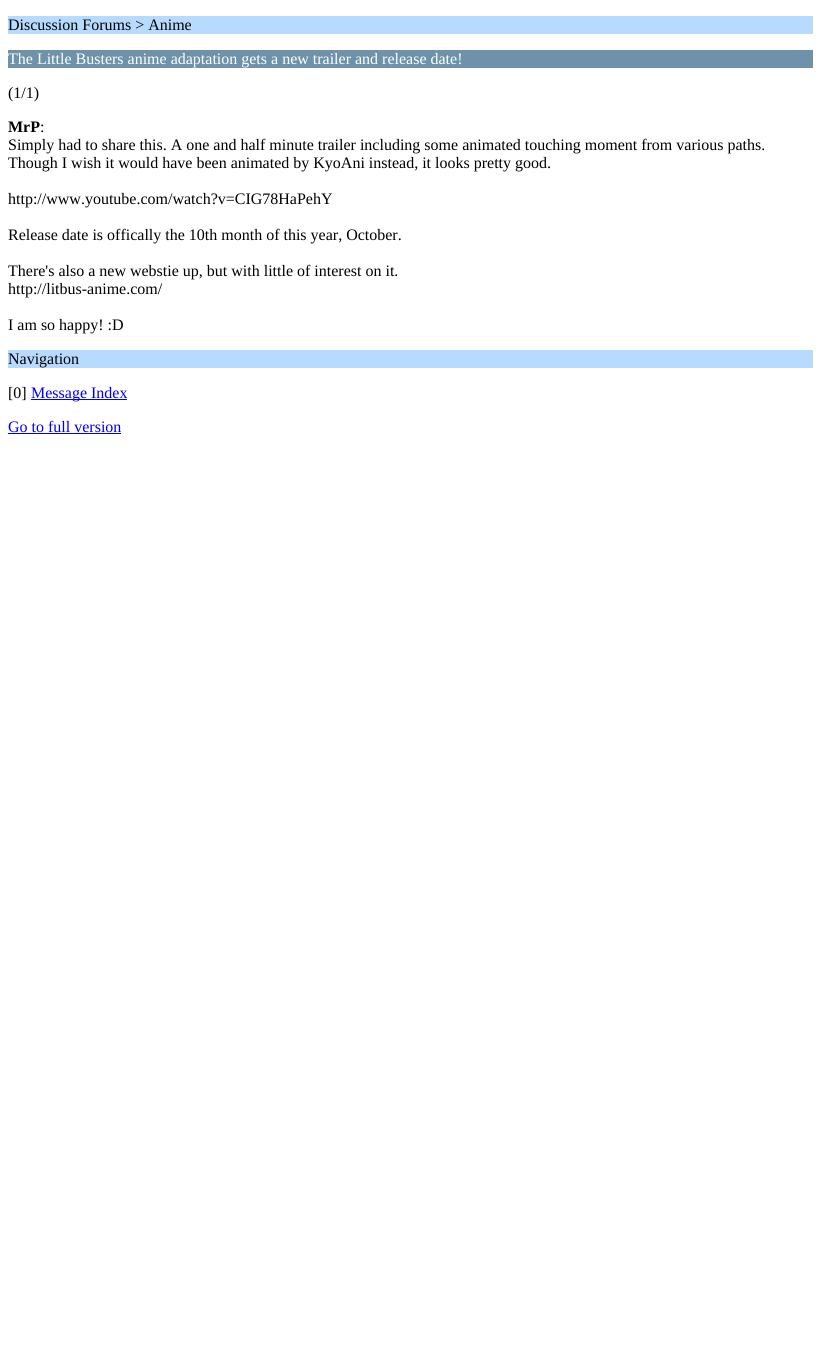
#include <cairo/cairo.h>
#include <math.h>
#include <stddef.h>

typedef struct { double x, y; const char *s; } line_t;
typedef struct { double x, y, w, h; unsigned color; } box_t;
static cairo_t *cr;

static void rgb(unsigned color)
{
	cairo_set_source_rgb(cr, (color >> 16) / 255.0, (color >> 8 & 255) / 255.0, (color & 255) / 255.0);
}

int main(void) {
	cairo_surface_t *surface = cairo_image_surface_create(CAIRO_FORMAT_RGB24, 821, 1358);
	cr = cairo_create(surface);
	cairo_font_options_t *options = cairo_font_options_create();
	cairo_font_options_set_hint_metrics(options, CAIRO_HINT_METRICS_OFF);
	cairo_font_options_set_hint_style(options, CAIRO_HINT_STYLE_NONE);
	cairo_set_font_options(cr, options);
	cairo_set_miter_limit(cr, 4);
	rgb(0xffffff);
	cairo_paint(cr);
	{
		static const box_t items[] = {
			{8, 16, 805, 18, 0xb6dbff},
			{8, 50, 805, 18, 0x6d92aa},
			{8, 350, 805, 18, 0xb6dbff},
			{31, 399, 96, 1, 0x0000ee},
			{8, 433, 113, 1, 0x0000ee},
		};
		for (size_t i = 0; i < sizeof items / sizeof *items; i++) {
			rgb(items[i].color);
			cairo_rectangle(cr, items[i].x, items[i].y, items[i].w, items[i].h);
			cairo_fill(cr);
		}
	}
	cairo_select_font_face(cr, "Liberation Serif", CAIRO_FONT_SLANT_NORMAL, CAIRO_FONT_WEIGHT_NORMAL);
	cairo_set_font_size(cr, 16);
	rgb(0x000000);
	cairo_move_to(cr, 8, 30);
	cairo_show_text(cr, "Discussion Forums > Anime");
	rgb(0xffffff);
	cairo_move_to(cr, 8, 64);
	cairo_show_text(cr, "The Little Busters anime adaptation gets a new trailer and release date!");
	rgb(0x000000);
	cairo_move_to(cr, 8, 98);
	cairo_show_text(cr, "(1/1)");
	cairo_select_font_face(cr, "Liberation Serif", CAIRO_FONT_SLANT_NORMAL, CAIRO_FONT_WEIGHT_BOLD);
	cairo_move_to(cr, 8, 132);
	cairo_show_text(cr, "MrP");
	cairo_select_font_face(cr, "Liberation Serif", CAIRO_FONT_SLANT_NORMAL, CAIRO_FONT_WEIGHT_NORMAL);
	{
		static const line_t items[] = {
			{40, 132, ":"},
			{8, 150, "Simply had to share this. A one and half minute trailer including some animated touching moment from various paths."},
			{8, 168, "Though I wish it would have been animated by KyoAni instead, it looks pretty good."},
			{8, 204, "http://www.youtube.com/watch?v=CIG78HaPehY"},
			{8, 240, "Release date is offically the 10th month of this year, October."},
			{8, 276, "There's also a new webstie up, but with little of interest on it."},
			{8, 294, "http://litbus-anime.com/"},
			{8, 330, "I am so happy! :D"},
			{8, 364, "Navigation"},
			{8, 398, "[0]"},
		};
		for (size_t i = 0; i < sizeof items / sizeof *items; i++) {
			cairo_move_to(cr, items[i].x, items[i].y);
			cairo_show_text(cr, items[i].s);
		}
	}
	rgb(0x0000ee);
	cairo_move_to(cr, 31, 398);
	cairo_show_text(cr, "Message Index");
	cairo_move_to(cr, 8, 432);
	cairo_show_text(cr, "Go to full version");
	cairo_surface_write_to_png(surface, "page.png");
	cairo_font_options_destroy(options);
	cairo_destroy(cr);
	cairo_surface_destroy(surface);
	return 0;
}
